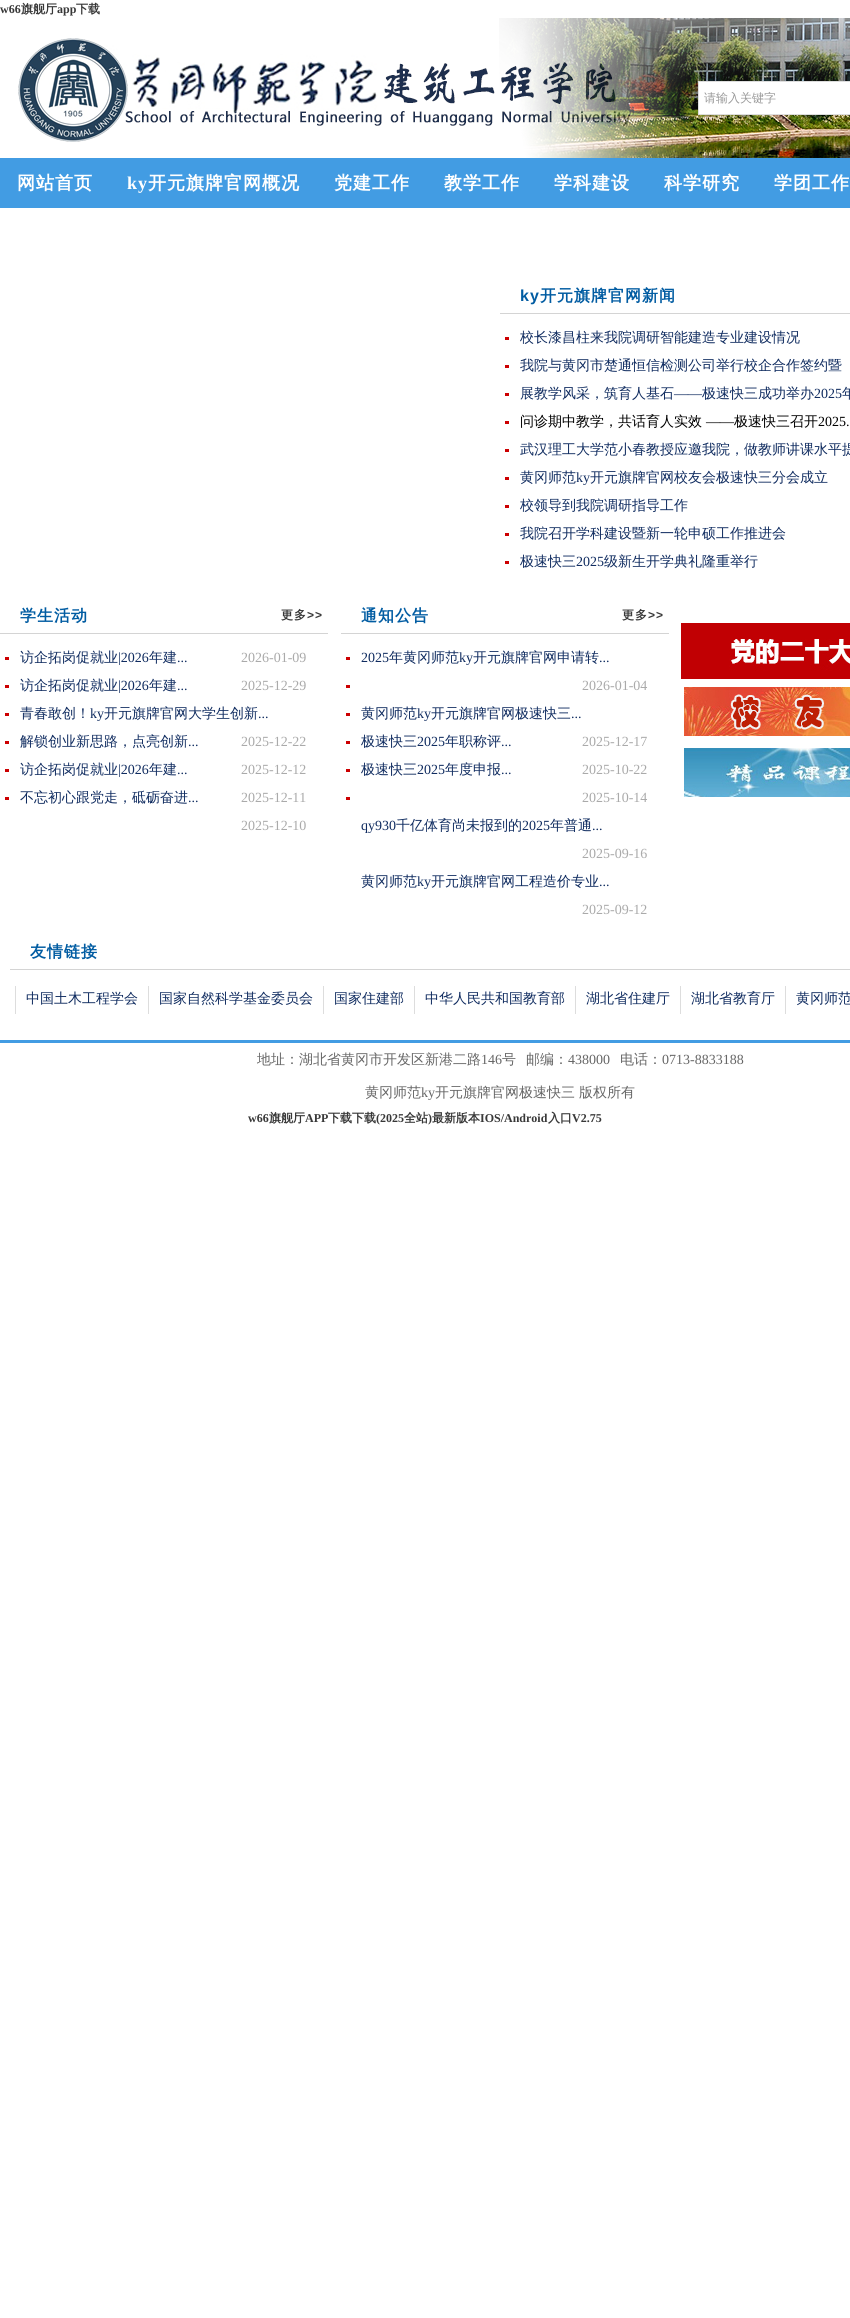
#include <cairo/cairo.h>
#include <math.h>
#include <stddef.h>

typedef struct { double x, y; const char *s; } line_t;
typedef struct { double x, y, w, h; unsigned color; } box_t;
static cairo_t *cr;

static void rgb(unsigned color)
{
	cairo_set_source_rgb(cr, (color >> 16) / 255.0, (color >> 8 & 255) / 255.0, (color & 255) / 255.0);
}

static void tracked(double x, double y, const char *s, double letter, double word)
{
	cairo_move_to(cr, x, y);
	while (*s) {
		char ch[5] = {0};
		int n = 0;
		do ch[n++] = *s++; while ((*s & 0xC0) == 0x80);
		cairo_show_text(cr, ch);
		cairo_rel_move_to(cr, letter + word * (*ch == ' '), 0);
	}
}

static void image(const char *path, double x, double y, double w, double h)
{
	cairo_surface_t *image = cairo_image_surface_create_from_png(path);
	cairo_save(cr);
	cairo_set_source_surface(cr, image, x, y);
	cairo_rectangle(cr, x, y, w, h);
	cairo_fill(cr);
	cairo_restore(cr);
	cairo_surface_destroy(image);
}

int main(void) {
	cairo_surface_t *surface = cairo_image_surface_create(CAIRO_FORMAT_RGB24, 850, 2318);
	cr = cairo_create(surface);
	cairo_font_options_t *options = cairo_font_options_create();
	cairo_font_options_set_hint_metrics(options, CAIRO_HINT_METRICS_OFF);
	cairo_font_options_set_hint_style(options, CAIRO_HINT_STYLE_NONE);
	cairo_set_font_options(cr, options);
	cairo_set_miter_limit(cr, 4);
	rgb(0xffffff);
	cairo_paint(cr);
	image("img/1.png", 18, 18, 832, 140);
	rgb(0xffffff);
	cairo_rectangle(cr, 698.5, 81.5, 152, 33);
	cairo_fill_preserve(cr);
	rgb(0xdddddd);
	cairo_set_line_width(cr, 1);
	cairo_stroke(cr);
	{
		static const box_t items[] = {
			{0, 158, 850, 50, 0x429ce3},
			{500, 313, 350, 1, 0xd4d4d4},
			{505, 337, 4, 3, 0xcc0001},
			{505, 365, 4, 3, 0xcc0001},
			{505, 393, 4, 3, 0xcc0001},
			{505, 421, 4, 3, 0xcc0001},
			{505, 449, 4, 3, 0xcc0001},
			{505, 477, 4, 3, 0xcc0001},
			{505, 505, 4, 3, 0xcc0001},
			{505, 533, 4, 3, 0xcc0001},
			{505, 561, 4, 3, 0xcc0001},
			{0, 633, 328, 1, 0xd4d4d4},
			{5, 657, 4, 3, 0xcc0001},
			{5, 685, 4, 3, 0xcc0001},
			{5, 713, 4, 3, 0xcc0001},
			{5, 741, 4, 3, 0xcc0001},
			{5, 769, 4, 3, 0xcc0001},
			{5, 797, 4, 3, 0xcc0001},
			{341, 633, 328, 1, 0xd4d4d4},
			{346, 657, 4, 3, 0xcc0001},
			{346, 685, 4, 3, 0xcc0001},
			{346, 713, 4, 3, 0xcc0001},
			{346, 741, 4, 3, 0xcc0001},
			{346, 769, 4, 3, 0xcc0001},
			{346, 797, 4, 3, 0xcc0001},
		};
		for (size_t i = 0; i < sizeof items / sizeof *items; i++) {
			rgb(items[i].color);
			cairo_rectangle(cr, items[i].x, items[i].y, items[i].w, items[i].h);
			cairo_fill(cr);
		}
	}
	image("img/2.png", 681, 623, 169, 56);
	image("img/3.png", 684, 687, 166, 50);
	image("img/4.png", 683, 748, 167, 49);
	{
		static const box_t items[] = {
			{10, 969, 840, 1, 0xd4d4d4},
			{15, 986, 1, 28, 0xdddddd},
			{148, 986, 1, 28, 0xdddddd},
			{323, 986, 1, 28, 0xdddddd},
			{414, 986, 1, 28, 0xdddddd},
			{575, 986, 1, 28, 0xdddddd},
			{680, 986, 1, 28, 0xdddddd},
			{785, 986, 1, 28, 0xdddddd},
			{0, 1040, 850, 3, 0x429ce3},
		};
		for (size_t i = 0; i < sizeof items / sizeof *items; i++) {
			rgb(items[i].color);
			cairo_rectangle(cr, items[i].x, items[i].y, items[i].w, items[i].h);
			cairo_fill(cr);
		}
	}
	cairo_select_font_face(cr, "Liberation Serif", CAIRO_FONT_SLANT_NORMAL, CAIRO_FONT_WEIGHT_BOLD);
	cairo_set_font_size(cr, 12);
	rgb(0x383838);
	cairo_move_to(cr, 0, 13);
	cairo_show_text(cr, "w66");
	cairo_select_font_face(cr, "WenQuanYi Zen Hei", CAIRO_FONT_SLANT_NORMAL, CAIRO_FONT_WEIGHT_BOLD);
	cairo_move_to(cr, 21, 13);
	cairo_show_text(cr, "旗舰厅");
	cairo_select_font_face(cr, "Liberation Serif", CAIRO_FONT_SLANT_NORMAL, CAIRO_FONT_WEIGHT_BOLD);
	cairo_move_to(cr, 57, 13);
	cairo_show_text(cr, "app");
	cairo_select_font_face(cr, "WenQuanYi Zen Hei", CAIRO_FONT_SLANT_NORMAL, CAIRO_FONT_WEIGHT_BOLD);
	cairo_move_to(cr, 76, 13);
	cairo_show_text(cr, "下载");
	cairo_select_font_face(cr, "WenQuanYi Zen Hei Medium", CAIRO_FONT_SLANT_NORMAL, CAIRO_FONT_WEIGHT_NORMAL);
	rgb(0x999999);
	cairo_move_to(cr, 704, 102);
	cairo_show_text(cr, "请输入关键字");
	cairo_select_font_face(cr, "WenQuanYi Zen Hei", CAIRO_FONT_SLANT_NORMAL, CAIRO_FONT_WEIGHT_BOLD);
	cairo_set_font_size(cr, 18);
	rgb(0xffffff);
	tracked(17, 189, "网站首页", 1, 0);
	cairo_select_font_face(cr, "Liberation Serif", CAIRO_FONT_SLANT_NORMAL, CAIRO_FONT_WEIGHT_BOLD);
	tracked(127, 189, "ky", 1, 0);
	cairo_select_font_face(cr, "WenQuanYi Zen Hei", CAIRO_FONT_SLANT_NORMAL, CAIRO_FONT_WEIGHT_BOLD);
	{
		static const line_t items[] = {
			{148, 189, "开元旗牌官网概况"},
			{334, 189, "党建工作"},
			{444, 189, "教学工作"},
			{554, 189, "学科建设"},
			{664, 189, "科学研究"},
			{774, 189, "学团工作"},
		};
		for (size_t i = 0; i < sizeof items / sizeof *items; i++) {
			tracked(items[i].x, items[i].y, items[i].s, 1, 0);
		}
	}
	cairo_select_font_face(cr, "Liberation Sans", CAIRO_FONT_SLANT_NORMAL, CAIRO_FONT_WEIGHT_BOLD);
	cairo_set_font_size(cr, 16);
	rgb(0x015ca2);
	tracked(520, 301, "ky", 1, 0);
	cairo_select_font_face(cr, "WenQuanYi Zen Hei", CAIRO_FONT_SLANT_NORMAL, CAIRO_FONT_WEIGHT_BOLD);
	tracked(540, 301, "开元旗牌官网新闻", 1, 0);
	cairo_select_font_face(cr, "WenQuanYi Zen Hei Medium", CAIRO_FONT_SLANT_NORMAL, CAIRO_FONT_WEIGHT_NORMAL);
	cairo_set_font_size(cr, 14);
	rgb(0x102c60);
	{
		static const line_t items[] = {
			{520, 342, "校长漆昌柱来我院调研智能建造专业建设情况"},
			{520, 370, "我院与黄冈市楚通恒信检测公司举行校企合作签约暨"},
			{520, 398, "展教学风采，筑育人基石"},
		};
		for (size_t i = 0; i < sizeof items / sizeof *items; i++) {
			cairo_move_to(cr, items[i].x, items[i].y);
			cairo_show_text(cr, items[i].s);
		}
	}
	cairo_select_font_face(cr, "Liberation Serif", CAIRO_FONT_SLANT_NORMAL, CAIRO_FONT_WEIGHT_NORMAL);
	cairo_move_to(cr, 674, 398);
	cairo_show_text(cr, "——");
	cairo_select_font_face(cr, "WenQuanYi Zen Hei Medium", CAIRO_FONT_SLANT_NORMAL, CAIRO_FONT_WEIGHT_NORMAL);
	cairo_move_to(cr, 702, 398);
	cairo_show_text(cr, "极速快三成功举办");
	cairo_select_font_face(cr, "Liberation Serif", CAIRO_FONT_SLANT_NORMAL, CAIRO_FONT_WEIGHT_NORMAL);
	cairo_move_to(cr, 814, 398);
	cairo_show_text(cr, "2025");
	cairo_select_font_face(cr, "WenQuanYi Zen Hei Medium", CAIRO_FONT_SLANT_NORMAL, CAIRO_FONT_WEIGHT_NORMAL);
	cairo_move_to(cr, 842, 398);
	cairo_show_text(cr, "年");
	rgb(0x000000);
	cairo_move_to(cr, 520, 426);
	cairo_show_text(cr, "问诊期中教学，共话育人实效");
	cairo_select_font_face(cr, "Liberation Serif", CAIRO_FONT_SLANT_NORMAL, CAIRO_FONT_WEIGHT_NORMAL);
	cairo_move_to(cr, 706, 426);
	cairo_show_text(cr, "——");
	cairo_select_font_face(cr, "WenQuanYi Zen Hei Medium", CAIRO_FONT_SLANT_NORMAL, CAIRO_FONT_WEIGHT_NORMAL);
	cairo_move_to(cr, 734, 426);
	cairo_show_text(cr, "极速快三召开");
	cairo_select_font_face(cr, "Liberation Serif", CAIRO_FONT_SLANT_NORMAL, CAIRO_FONT_WEIGHT_NORMAL);
	cairo_move_to(cr, 818, 426);
	cairo_show_text(cr, "2025.");
	cairo_select_font_face(cr, "WenQuanYi Zen Hei Medium", CAIRO_FONT_SLANT_NORMAL, CAIRO_FONT_WEIGHT_NORMAL);
	rgb(0x102c60);
	cairo_move_to(cr, 520, 454);
	cairo_show_text(cr, "武汉理工大学范小春教授应邀我院，做教师讲课水平提");
	cairo_move_to(cr, 520, 482);
	cairo_show_text(cr, "黄冈师范");
	cairo_select_font_face(cr, "Liberation Serif", CAIRO_FONT_SLANT_NORMAL, CAIRO_FONT_WEIGHT_NORMAL);
	cairo_move_to(cr, 576, 482);
	cairo_show_text(cr, "ky");
	cairo_select_font_face(cr, "WenQuanYi Zen Hei Medium", CAIRO_FONT_SLANT_NORMAL, CAIRO_FONT_WEIGHT_NORMAL);
	{
		static const line_t items[] = {
			{590, 482, "开元旗牌官网校友会极速快三分会成立"},
			{520, 510, "校领导到我院调研指导工作"},
			{520, 538, "我院召开学科建设暨新一轮申硕工作推进会"},
			{520, 566, "极速快三"},
		};
		for (size_t i = 0; i < sizeof items / sizeof *items; i++) {
			cairo_move_to(cr, items[i].x, items[i].y);
			cairo_show_text(cr, items[i].s);
		}
	}
	cairo_select_font_face(cr, "Liberation Serif", CAIRO_FONT_SLANT_NORMAL, CAIRO_FONT_WEIGHT_NORMAL);
	cairo_move_to(cr, 576, 566);
	cairo_show_text(cr, "2025");
	cairo_select_font_face(cr, "WenQuanYi Zen Hei Medium", CAIRO_FONT_SLANT_NORMAL, CAIRO_FONT_WEIGHT_NORMAL);
	cairo_move_to(cr, 604, 566);
	cairo_show_text(cr, "级新生开学典礼隆重举行");
	cairo_select_font_face(cr, "WenQuanYi Zen Hei", CAIRO_FONT_SLANT_NORMAL, CAIRO_FONT_WEIGHT_BOLD);
	cairo_set_font_size(cr, 16);
	rgb(0x015ca2);
	tracked(20, 621, "学生活动", 1, 0);
	cairo_set_font_size(cr, 12);
	rgb(0x383838);
	tracked(281, 619, "更多", 1, 0);
	cairo_select_font_face(cr, "Liberation Sans", CAIRO_FONT_SLANT_NORMAL, CAIRO_FONT_WEIGHT_BOLD);
	tracked(307, 619, ">>", 1, 0);
	cairo_select_font_face(cr, "WenQuanYi Zen Hei Medium", CAIRO_FONT_SLANT_NORMAL, CAIRO_FONT_WEIGHT_NORMAL);
	cairo_set_font_size(cr, 14);
	rgb(0x102c60);
	cairo_move_to(cr, 20, 662);
	cairo_show_text(cr, "访企拓岗促就业");
	cairo_select_font_face(cr, "Liberation Serif", CAIRO_FONT_SLANT_NORMAL, CAIRO_FONT_WEIGHT_NORMAL);
	cairo_move_to(cr, 118, 662);
	cairo_show_text(cr, "|2026");
	cairo_select_font_face(cr, "WenQuanYi Zen Hei Medium", CAIRO_FONT_SLANT_NORMAL, CAIRO_FONT_WEIGHT_NORMAL);
	cairo_move_to(cr, 149, 662);
	cairo_show_text(cr, "年建");
	cairo_select_font_face(cr, "Liberation Serif", CAIRO_FONT_SLANT_NORMAL, CAIRO_FONT_WEIGHT_NORMAL);
	cairo_move_to(cr, 177, 662);
	cairo_show_text(cr, "...");
	rgb(0xaaaaaa);
	cairo_move_to(cr, 241, 662);
	cairo_show_text(cr, "2026-01-09");
	cairo_select_font_face(cr, "WenQuanYi Zen Hei Medium", CAIRO_FONT_SLANT_NORMAL, CAIRO_FONT_WEIGHT_NORMAL);
	rgb(0x102c60);
	cairo_move_to(cr, 20, 690);
	cairo_show_text(cr, "访企拓岗促就业");
	cairo_select_font_face(cr, "Liberation Serif", CAIRO_FONT_SLANT_NORMAL, CAIRO_FONT_WEIGHT_NORMAL);
	cairo_move_to(cr, 118, 690);
	cairo_show_text(cr, "|2026");
	cairo_select_font_face(cr, "WenQuanYi Zen Hei Medium", CAIRO_FONT_SLANT_NORMAL, CAIRO_FONT_WEIGHT_NORMAL);
	cairo_move_to(cr, 149, 690);
	cairo_show_text(cr, "年建");
	cairo_select_font_face(cr, "Liberation Serif", CAIRO_FONT_SLANT_NORMAL, CAIRO_FONT_WEIGHT_NORMAL);
	cairo_move_to(cr, 177, 690);
	cairo_show_text(cr, "...");
	rgb(0xaaaaaa);
	cairo_move_to(cr, 241, 690);
	cairo_show_text(cr, "2025-12-29");
	cairo_select_font_face(cr, "WenQuanYi Zen Hei Medium", CAIRO_FONT_SLANT_NORMAL, CAIRO_FONT_WEIGHT_NORMAL);
	rgb(0x102c60);
	cairo_move_to(cr, 20, 718);
	cairo_show_text(cr, "青春敢创！");
	cairo_select_font_face(cr, "Liberation Serif", CAIRO_FONT_SLANT_NORMAL, CAIRO_FONT_WEIGHT_NORMAL);
	cairo_move_to(cr, 90, 718);
	cairo_show_text(cr, "ky");
	cairo_select_font_face(cr, "WenQuanYi Zen Hei Medium", CAIRO_FONT_SLANT_NORMAL, CAIRO_FONT_WEIGHT_NORMAL);
	cairo_move_to(cr, 104, 718);
	cairo_show_text(cr, "开元旗牌官网大学生创新");
	cairo_select_font_face(cr, "Liberation Serif", CAIRO_FONT_SLANT_NORMAL, CAIRO_FONT_WEIGHT_NORMAL);
	cairo_move_to(cr, 258, 718);
	cairo_show_text(cr, "...");
	rgb(0xaaaaaa);
	cairo_move_to(cr, 241, 746);
	cairo_show_text(cr, "2025-12-22");
	cairo_select_font_face(cr, "WenQuanYi Zen Hei Medium", CAIRO_FONT_SLANT_NORMAL, CAIRO_FONT_WEIGHT_NORMAL);
	rgb(0x102c60);
	cairo_move_to(cr, 20, 746);
	cairo_show_text(cr, "解锁创业新思路，点亮创新");
	cairo_select_font_face(cr, "Liberation Serif", CAIRO_FONT_SLANT_NORMAL, CAIRO_FONT_WEIGHT_NORMAL);
	cairo_move_to(cr, 188, 746);
	cairo_show_text(cr, "...");
	rgb(0xaaaaaa);
	cairo_move_to(cr, 241, 774);
	cairo_show_text(cr, "2025-12-12");
	cairo_select_font_face(cr, "WenQuanYi Zen Hei Medium", CAIRO_FONT_SLANT_NORMAL, CAIRO_FONT_WEIGHT_NORMAL);
	rgb(0x102c60);
	cairo_move_to(cr, 20, 774);
	cairo_show_text(cr, "访企拓岗促就业");
	cairo_select_font_face(cr, "Liberation Serif", CAIRO_FONT_SLANT_NORMAL, CAIRO_FONT_WEIGHT_NORMAL);
	cairo_move_to(cr, 118, 774);
	cairo_show_text(cr, "|2026");
	cairo_select_font_face(cr, "WenQuanYi Zen Hei Medium", CAIRO_FONT_SLANT_NORMAL, CAIRO_FONT_WEIGHT_NORMAL);
	cairo_move_to(cr, 149, 774);
	cairo_show_text(cr, "年建");
	cairo_select_font_face(cr, "Liberation Serif", CAIRO_FONT_SLANT_NORMAL, CAIRO_FONT_WEIGHT_NORMAL);
	cairo_move_to(cr, 177, 774);
	cairo_show_text(cr, "...");
	rgb(0xaaaaaa);
	cairo_move_to(cr, 241, 802);
	cairo_show_text(cr, "2025-12-11");
	cairo_select_font_face(cr, "WenQuanYi Zen Hei Medium", CAIRO_FONT_SLANT_NORMAL, CAIRO_FONT_WEIGHT_NORMAL);
	rgb(0x102c60);
	cairo_move_to(cr, 20, 802);
	cairo_show_text(cr, "不忘初心跟党走，砥砺奋进");
	cairo_select_font_face(cr, "Liberation Serif", CAIRO_FONT_SLANT_NORMAL, CAIRO_FONT_WEIGHT_NORMAL);
	cairo_move_to(cr, 188, 802);
	cairo_show_text(cr, "...");
	rgb(0xaaaaaa);
	cairo_move_to(cr, 241, 830);
	cairo_show_text(cr, "2025-12-10");
	cairo_select_font_face(cr, "WenQuanYi Zen Hei", CAIRO_FONT_SLANT_NORMAL, CAIRO_FONT_WEIGHT_BOLD);
	cairo_set_font_size(cr, 16);
	rgb(0x015ca2);
	tracked(361, 621, "通知公告", 1, 0);
	cairo_set_font_size(cr, 12);
	rgb(0x383838);
	tracked(622, 619, "更多", 1, 0);
	cairo_select_font_face(cr, "Liberation Sans", CAIRO_FONT_SLANT_NORMAL, CAIRO_FONT_WEIGHT_BOLD);
	tracked(648, 619, ">>", 1, 0);
	cairo_select_font_face(cr, "Liberation Serif", CAIRO_FONT_SLANT_NORMAL, CAIRO_FONT_WEIGHT_NORMAL);
	cairo_set_font_size(cr, 14);
	rgb(0x102c60);
	cairo_move_to(cr, 361, 662);
	cairo_show_text(cr, "2025");
	cairo_select_font_face(cr, "WenQuanYi Zen Hei Medium", CAIRO_FONT_SLANT_NORMAL, CAIRO_FONT_WEIGHT_NORMAL);
	cairo_move_to(cr, 389, 662);
	cairo_show_text(cr, "年黄冈师范");
	cairo_select_font_face(cr, "Liberation Serif", CAIRO_FONT_SLANT_NORMAL, CAIRO_FONT_WEIGHT_NORMAL);
	cairo_move_to(cr, 459, 662);
	cairo_show_text(cr, "ky");
	cairo_select_font_face(cr, "WenQuanYi Zen Hei Medium", CAIRO_FONT_SLANT_NORMAL, CAIRO_FONT_WEIGHT_NORMAL);
	cairo_move_to(cr, 473, 662);
	cairo_show_text(cr, "开元旗牌官网申请转");
	cairo_select_font_face(cr, "Liberation Serif", CAIRO_FONT_SLANT_NORMAL, CAIRO_FONT_WEIGHT_NORMAL);
	cairo_move_to(cr, 599, 662);
	cairo_show_text(cr, "...");
	rgb(0xaaaaaa);
	cairo_move_to(cr, 582, 690);
	cairo_show_text(cr, "2026-01-04");
	cairo_select_font_face(cr, "WenQuanYi Zen Hei Medium", CAIRO_FONT_SLANT_NORMAL, CAIRO_FONT_WEIGHT_NORMAL);
	rgb(0x102c60);
	cairo_move_to(cr, 361, 718);
	cairo_show_text(cr, "黄冈师范");
	cairo_select_font_face(cr, "Liberation Serif", CAIRO_FONT_SLANT_NORMAL, CAIRO_FONT_WEIGHT_NORMAL);
	cairo_move_to(cr, 417, 718);
	cairo_show_text(cr, "ky");
	cairo_select_font_face(cr, "WenQuanYi Zen Hei Medium", CAIRO_FONT_SLANT_NORMAL, CAIRO_FONT_WEIGHT_NORMAL);
	cairo_move_to(cr, 431, 718);
	cairo_show_text(cr, "开元旗牌官网极速快三");
	cairo_select_font_face(cr, "Liberation Serif", CAIRO_FONT_SLANT_NORMAL, CAIRO_FONT_WEIGHT_NORMAL);
	cairo_move_to(cr, 571, 718);
	cairo_show_text(cr, "...");
	rgb(0xaaaaaa);
	cairo_move_to(cr, 582, 746);
	cairo_show_text(cr, "2025-12-17");
	cairo_select_font_face(cr, "WenQuanYi Zen Hei Medium", CAIRO_FONT_SLANT_NORMAL, CAIRO_FONT_WEIGHT_NORMAL);
	rgb(0x102c60);
	cairo_move_to(cr, 361, 746);
	cairo_show_text(cr, "极速快三");
	cairo_select_font_face(cr, "Liberation Serif", CAIRO_FONT_SLANT_NORMAL, CAIRO_FONT_WEIGHT_NORMAL);
	cairo_move_to(cr, 417, 746);
	cairo_show_text(cr, "2025");
	cairo_select_font_face(cr, "WenQuanYi Zen Hei Medium", CAIRO_FONT_SLANT_NORMAL, CAIRO_FONT_WEIGHT_NORMAL);
	cairo_move_to(cr, 445, 746);
	cairo_show_text(cr, "年职称评");
	cairo_select_font_face(cr, "Liberation Serif", CAIRO_FONT_SLANT_NORMAL, CAIRO_FONT_WEIGHT_NORMAL);
	cairo_move_to(cr, 501, 746);
	cairo_show_text(cr, "...");
	rgb(0xaaaaaa);
	cairo_move_to(cr, 582, 774);
	cairo_show_text(cr, "2025-10-22");
	cairo_select_font_face(cr, "WenQuanYi Zen Hei Medium", CAIRO_FONT_SLANT_NORMAL, CAIRO_FONT_WEIGHT_NORMAL);
	rgb(0x102c60);
	cairo_move_to(cr, 361, 774);
	cairo_show_text(cr, "极速快三");
	cairo_select_font_face(cr, "Liberation Serif", CAIRO_FONT_SLANT_NORMAL, CAIRO_FONT_WEIGHT_NORMAL);
	cairo_move_to(cr, 417, 774);
	cairo_show_text(cr, "2025");
	cairo_select_font_face(cr, "WenQuanYi Zen Hei Medium", CAIRO_FONT_SLANT_NORMAL, CAIRO_FONT_WEIGHT_NORMAL);
	cairo_move_to(cr, 445, 774);
	cairo_show_text(cr, "年度申报");
	cairo_select_font_face(cr, "Liberation Serif", CAIRO_FONT_SLANT_NORMAL, CAIRO_FONT_WEIGHT_NORMAL);
	cairo_move_to(cr, 501, 774);
	cairo_show_text(cr, "...");
	rgb(0xaaaaaa);
	cairo_move_to(cr, 582, 802);
	cairo_show_text(cr, "2025-10-14");
	rgb(0x102c60);
	cairo_move_to(cr, 361, 830);
	cairo_show_text(cr, "qy930");
	cairo_select_font_face(cr, "WenQuanYi Zen Hei Medium", CAIRO_FONT_SLANT_NORMAL, CAIRO_FONT_WEIGHT_NORMAL);
	cairo_move_to(cr, 396, 830);
	cairo_show_text(cr, "千亿体育尚未报到的");
	cairo_select_font_face(cr, "Liberation Serif", CAIRO_FONT_SLANT_NORMAL, CAIRO_FONT_WEIGHT_NORMAL);
	cairo_move_to(cr, 522, 830);
	cairo_show_text(cr, "2025");
	cairo_select_font_face(cr, "WenQuanYi Zen Hei Medium", CAIRO_FONT_SLANT_NORMAL, CAIRO_FONT_WEIGHT_NORMAL);
	cairo_move_to(cr, 550, 830);
	cairo_show_text(cr, "年普通");
	cairo_select_font_face(cr, "Liberation Serif", CAIRO_FONT_SLANT_NORMAL, CAIRO_FONT_WEIGHT_NORMAL);
	cairo_move_to(cr, 592, 830);
	cairo_show_text(cr, "...");
	rgb(0xaaaaaa);
	cairo_move_to(cr, 582, 858);
	cairo_show_text(cr, "2025-09-16");
	cairo_select_font_face(cr, "WenQuanYi Zen Hei Medium", CAIRO_FONT_SLANT_NORMAL, CAIRO_FONT_WEIGHT_NORMAL);
	rgb(0x102c60);
	cairo_move_to(cr, 361, 886);
	cairo_show_text(cr, "黄冈师范");
	cairo_select_font_face(cr, "Liberation Serif", CAIRO_FONT_SLANT_NORMAL, CAIRO_FONT_WEIGHT_NORMAL);
	cairo_move_to(cr, 417, 886);
	cairo_show_text(cr, "ky");
	cairo_select_font_face(cr, "WenQuanYi Zen Hei Medium", CAIRO_FONT_SLANT_NORMAL, CAIRO_FONT_WEIGHT_NORMAL);
	cairo_move_to(cr, 431, 886);
	cairo_show_text(cr, "开元旗牌官网工程造价专业");
	cairo_select_font_face(cr, "Liberation Serif", CAIRO_FONT_SLANT_NORMAL, CAIRO_FONT_WEIGHT_NORMAL);
	cairo_move_to(cr, 599, 886);
	cairo_show_text(cr, "...");
	rgb(0xaaaaaa);
	cairo_move_to(cr, 582, 914);
	cairo_show_text(cr, "2025-09-12");
	cairo_select_font_face(cr, "WenQuanYi Zen Hei", CAIRO_FONT_SLANT_NORMAL, CAIRO_FONT_WEIGHT_BOLD);
	cairo_set_font_size(cr, 16);
	rgb(0x015ca2);
	tracked(30, 957, "友情链接", 1, 0);
	cairo_select_font_face(cr, "WenQuanYi Zen Hei Medium", CAIRO_FONT_SLANT_NORMAL, CAIRO_FONT_WEIGHT_NORMAL);
	cairo_set_font_size(cr, 14);
	rgb(0x102c60);
	{
		static const line_t items[] = {
			{26, 1003, "中国土木工程学会"},
			{159, 1003, "国家自然科学基金委员会"},
			{334, 1003, "国家住建部"},
			{425, 1003, "中华人民共和国教育部"},
			{586, 1003, "湖北省住建厅"},
			{691, 1003, "湖北省教育厅"},
			{796, 1003, "黄冈师范"},
		};
		for (size_t i = 0; i < sizeof items / sizeof *items; i++) {
			cairo_move_to(cr, items[i].x, items[i].y);
			cairo_show_text(cr, items[i].s);
		}
	}
	rgb(0x666666);
	cairo_move_to(cr, 257, 1064);
	cairo_show_text(cr, "地址：湖北省黄冈市开发区新港二路");
	cairo_select_font_face(cr, "Liberation Serif", CAIRO_FONT_SLANT_NORMAL, CAIRO_FONT_WEIGHT_NORMAL);
	cairo_move_to(cr, 481, 1064);
	cairo_show_text(cr, "146");
	cairo_select_font_face(cr, "WenQuanYi Zen Hei Medium", CAIRO_FONT_SLANT_NORMAL, CAIRO_FONT_WEIGHT_NORMAL);
	cairo_move_to(cr, 502, 1064);
	cairo_show_text(cr, "号");
	cairo_move_to(cr, 526, 1064);
	cairo_show_text(cr, "邮编：");
	cairo_select_font_face(cr, "Liberation Serif", CAIRO_FONT_SLANT_NORMAL, CAIRO_FONT_WEIGHT_NORMAL);
	cairo_move_to(cr, 568, 1064);
	cairo_show_text(cr, "438000");
	cairo_select_font_face(cr, "WenQuanYi Zen Hei Medium", CAIRO_FONT_SLANT_NORMAL, CAIRO_FONT_WEIGHT_NORMAL);
	cairo_move_to(cr, 620, 1064);
	cairo_show_text(cr, "电话：");
	cairo_select_font_face(cr, "Liberation Serif", CAIRO_FONT_SLANT_NORMAL, CAIRO_FONT_WEIGHT_NORMAL);
	cairo_move_to(cr, 662, 1064);
	cairo_show_text(cr, "0713-8833188");
	cairo_select_font_face(cr, "WenQuanYi Zen Hei Medium", CAIRO_FONT_SLANT_NORMAL, CAIRO_FONT_WEIGHT_NORMAL);
	cairo_move_to(cr, 365, 1097);
	cairo_show_text(cr, "黄冈师范");
	cairo_select_font_face(cr, "Liberation Serif", CAIRO_FONT_SLANT_NORMAL, CAIRO_FONT_WEIGHT_NORMAL);
	cairo_move_to(cr, 421, 1097);
	cairo_show_text(cr, "ky");
	cairo_select_font_face(cr, "WenQuanYi Zen Hei Medium", CAIRO_FONT_SLANT_NORMAL, CAIRO_FONT_WEIGHT_NORMAL);
	cairo_move_to(cr, 435, 1097);
	cairo_show_text(cr, "开元旗牌官网极速快三");
	cairo_move_to(cr, 579, 1097);
	cairo_show_text(cr, "版权所有");
	cairo_select_font_face(cr, "Liberation Serif", CAIRO_FONT_SLANT_NORMAL, CAIRO_FONT_WEIGHT_BOLD);
	cairo_set_font_size(cr, 12);
	rgb(0x383838);
	cairo_move_to(cr, 248, 1122);
	cairo_show_text(cr, "w66");
	cairo_select_font_face(cr, "WenQuanYi Zen Hei", CAIRO_FONT_SLANT_NORMAL, CAIRO_FONT_WEIGHT_BOLD);
	cairo_move_to(cr, 269, 1122);
	cairo_show_text(cr, "旗舰厅");
	cairo_select_font_face(cr, "Liberation Serif", CAIRO_FONT_SLANT_NORMAL, CAIRO_FONT_WEIGHT_BOLD);
	cairo_move_to(cr, 305, 1122);
	cairo_show_text(cr, "APP");
	cairo_select_font_face(cr, "WenQuanYi Zen Hei", CAIRO_FONT_SLANT_NORMAL, CAIRO_FONT_WEIGHT_BOLD);
	cairo_move_to(cr, 328, 1122);
	cairo_show_text(cr, "下载下载");
	cairo_select_font_face(cr, "Liberation Serif", CAIRO_FONT_SLANT_NORMAL, CAIRO_FONT_WEIGHT_BOLD);
	cairo_move_to(cr, 376, 1122);
	cairo_show_text(cr, "(2025");
	cairo_select_font_face(cr, "WenQuanYi Zen Hei", CAIRO_FONT_SLANT_NORMAL, CAIRO_FONT_WEIGHT_BOLD);
	cairo_move_to(cr, 404, 1122);
	cairo_show_text(cr, "全站");
	cairo_select_font_face(cr, "Liberation Serif", CAIRO_FONT_SLANT_NORMAL, CAIRO_FONT_WEIGHT_BOLD);
	cairo_move_to(cr, 428, 1122);
	cairo_show_text(cr, ")");
	cairo_select_font_face(cr, "WenQuanYi Zen Hei", CAIRO_FONT_SLANT_NORMAL, CAIRO_FONT_WEIGHT_BOLD);
	cairo_move_to(cr, 432, 1122);
	cairo_show_text(cr, "最新版本");
	cairo_select_font_face(cr, "Liberation Serif", CAIRO_FONT_SLANT_NORMAL, CAIRO_FONT_WEIGHT_BOLD);
	cairo_move_to(cr, 480, 1122);
	cairo_show_text(cr, "IOS/Android");
	cairo_select_font_face(cr, "WenQuanYi Zen Hei", CAIRO_FONT_SLANT_NORMAL, CAIRO_FONT_WEIGHT_BOLD);
	cairo_move_to(cr, 548, 1122);
	cairo_show_text(cr, "入口");
	cairo_select_font_face(cr, "Liberation Serif", CAIRO_FONT_SLANT_NORMAL, CAIRO_FONT_WEIGHT_BOLD);
	cairo_move_to(cr, 572, 1122);
	cairo_show_text(cr, "V2.75");
	cairo_surface_write_to_png(surface, "page.png");
	cairo_font_options_destroy(options);
	cairo_destroy(cr);
	cairo_surface_destroy(surface);
	return 0;
}
